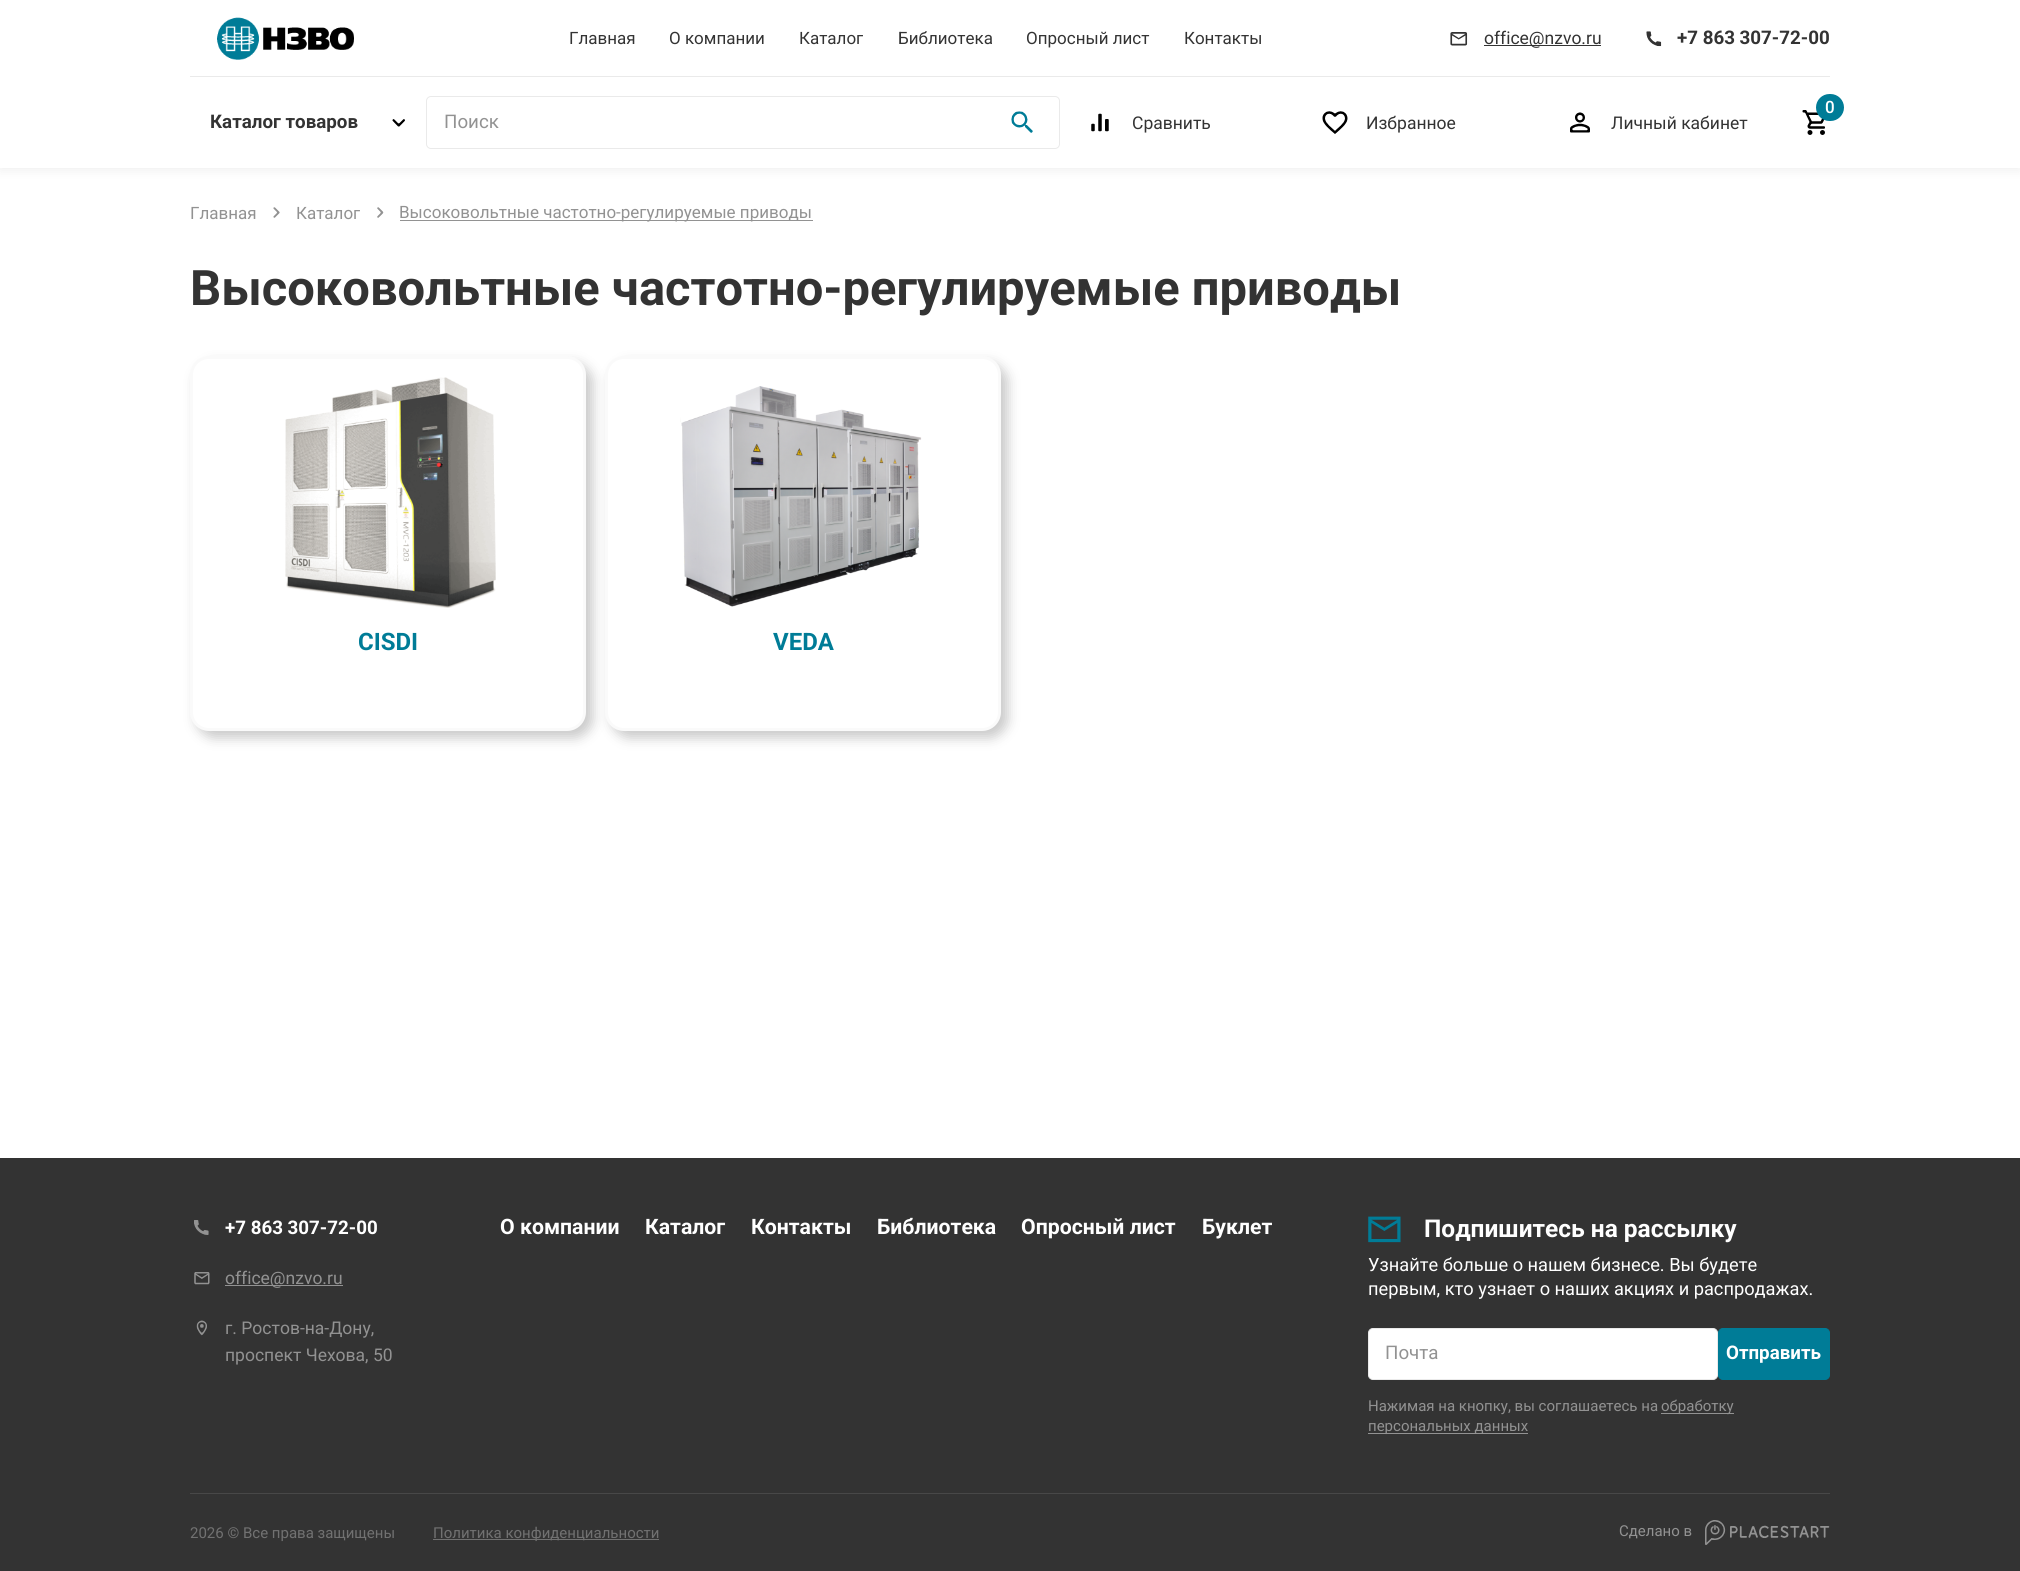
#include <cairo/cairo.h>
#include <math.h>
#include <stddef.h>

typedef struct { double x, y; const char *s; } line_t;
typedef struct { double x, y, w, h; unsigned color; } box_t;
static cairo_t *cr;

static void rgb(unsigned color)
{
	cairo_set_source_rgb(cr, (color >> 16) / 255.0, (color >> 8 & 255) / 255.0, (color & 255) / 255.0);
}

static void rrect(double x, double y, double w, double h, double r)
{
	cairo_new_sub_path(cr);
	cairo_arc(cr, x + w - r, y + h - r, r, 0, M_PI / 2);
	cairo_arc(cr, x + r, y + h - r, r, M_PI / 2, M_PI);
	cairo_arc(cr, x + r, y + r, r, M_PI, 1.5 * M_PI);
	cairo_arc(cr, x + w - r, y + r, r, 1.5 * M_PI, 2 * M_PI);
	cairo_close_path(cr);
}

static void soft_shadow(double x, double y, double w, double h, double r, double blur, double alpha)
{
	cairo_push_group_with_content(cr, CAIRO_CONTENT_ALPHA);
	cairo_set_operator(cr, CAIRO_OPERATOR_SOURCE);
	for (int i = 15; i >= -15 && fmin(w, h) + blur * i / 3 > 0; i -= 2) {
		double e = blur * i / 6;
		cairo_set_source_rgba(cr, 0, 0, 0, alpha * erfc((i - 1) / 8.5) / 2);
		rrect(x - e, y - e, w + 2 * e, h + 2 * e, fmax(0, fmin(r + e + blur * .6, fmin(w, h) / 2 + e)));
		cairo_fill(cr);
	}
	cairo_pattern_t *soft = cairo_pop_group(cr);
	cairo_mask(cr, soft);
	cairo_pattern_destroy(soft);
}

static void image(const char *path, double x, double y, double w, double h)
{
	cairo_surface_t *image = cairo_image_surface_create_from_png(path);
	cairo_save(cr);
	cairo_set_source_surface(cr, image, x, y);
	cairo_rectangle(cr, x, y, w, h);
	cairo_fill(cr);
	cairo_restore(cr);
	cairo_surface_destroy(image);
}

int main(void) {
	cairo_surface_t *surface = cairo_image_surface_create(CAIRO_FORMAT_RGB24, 2020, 1571);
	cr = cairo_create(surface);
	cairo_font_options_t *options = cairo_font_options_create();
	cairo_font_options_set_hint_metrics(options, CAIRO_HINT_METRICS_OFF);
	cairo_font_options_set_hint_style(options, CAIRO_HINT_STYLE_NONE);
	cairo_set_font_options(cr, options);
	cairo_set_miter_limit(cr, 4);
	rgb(0xffffff);
	cairo_paint(cr);
	rgb(0x000000);
	soft_shadow(0, 3, 2020, 167, 0, 6, 0.07);
	rgb(0xffffff);
	cairo_rectangle(cr, 0, 0, 2020, 168);
	cairo_fill(cr);
	rgb(0xeaeaea);
	cairo_rectangle(cr, 190, 76, 1640, 1);
	cairo_fill(cr);
	image("img/1.png", 217, 17, 137, 43);
	image("img/2.png", 1450, 32, 18, 14);
	rgb(0x333333);
	cairo_rectangle(cr, 1484, 45, 117, 1);
	cairo_fill(cr);
	image("img/3.png", 1646, 31, 16, 16);
	image("img/4.png", 1802, 110, 23, 25);
	rgb(0x007c97);
	rrect(1816, 94, 28, 27, 13.5);
	cairo_fill(cr);
	image("img/5.png", 392, 119, 13, 8);
	rrect(426.5, 96.5, 633, 52, 4.5);
	rgb(0xeaeaea);
	cairo_set_line_width(cr, 1);
	cairo_stroke(cr);
	image("img/6.png", 1011, 111, 22, 22);
	image("img/7.png", 1091, 113, 18, 19);
	image("img/8.png", 1322, 111, 26, 23);
	image("img/9.png", 1570, 112, 20, 21);
	image("img/10.png", 273, 207, 7, 11);
	image("img/11.png", 377, 207, 7, 11);
	rgb(0x929292);
	cairo_rectangle(cr, 400, 220, 413, 1);
	cairo_fill(cr);
	rgb(0xcacaca);
	soft_shadow(196, 363, 397, 375, 19, 6, 1);
	rgb(0xffffff);
	rrect(191.5, 357.5, 393, 372, 17.5);
	cairo_fill_preserve(cr);
	rgb(0xfafafa);
	cairo_set_line_width(cr, 3);
	cairo_stroke(cr);
	image("img/12.png", 285, 377, 211, 231);
	rgb(0xcacaca);
	soft_shadow(611, 363, 397, 375, 19, 6, 1);
	rgb(0xffffff);
	rrect(606.5, 357.5, 393, 372, 17.5);
	cairo_fill_preserve(cr);
	rgb(0xfafafa);
	cairo_stroke(cr);
	image("img/13.png", 680, 386, 242, 221);
	rgb(0x333333);
	cairo_rectangle(cr, 0, 1158, 2020, 413);
	cairo_fill(cr);
	image("img/14.png", 194, 1220, 15, 15);
	image("img/15.png", 194, 1272, 16, 13);
	rgb(0x929292);
	cairo_rectangle(cr, 225, 1285, 118, 1);
	cairo_fill(cr);
	image("img/16.png", 196, 1320, 11, 16);
	image("img/17.png", 1368, 1216, 33, 27);
	rgb(0xffffff);
	rrect(1368.5, 1328.5, 349, 51, 4.5);
	cairo_fill_preserve(cr);
	rgb(0xeaeaea);
	cairo_set_line_width(cr, 1);
	cairo_stroke(cr);
	rgb(0x007c97);
	rrect(1718.5, 1328.5, 111, 51, 4.5);
	cairo_fill_preserve(cr);
	cairo_stroke(cr);
	{
		static const box_t items[] = {
			{1661, 1413, 73, 1, 0x929292},
			{1368, 1433, 160, 1, 0x929292},
			{190, 1493, 1640, 1, 0x484848},
			{433, 1539, 226, 1, 0x717171},
		};
		for (size_t i = 0; i < sizeof items / sizeof *items; i++) {
			rgb(items[i].color);
			cairo_rectangle(cr, items[i].x, items[i].y, items[i].w, items[i].h);
			cairo_fill(cr);
		}
	}
	image("img/18.png", 1705, 1520, 125, 25);
	cairo_select_font_face(cr, "Roboto", CAIRO_FONT_SLANT_NORMAL, CAIRO_FONT_WEIGHT_NORMAL);
	cairo_set_font_size(cr, 17);
	rgb(0x333333);
	{
		static const line_t items[] = {
			{569, 44, "Главная"},
			{669, 44, "О компании"},
			{799, 44, "Каталог"},
			{898, 44, "Библиотека"},
			{1026, 44, "Опросный лист"},
			{1184, 44, "Контакты"},
		};
		for (size_t i = 0; i < sizeof items / sizeof *items; i++) {
			cairo_move_to(cr, items[i].x, items[i].y);
			cairo_show_text(cr, items[i].s);
		}
	}
	cairo_set_font_size(cr, 17.5);
	cairo_move_to(cr, 1484, 44);
	cairo_show_text(cr, "office@nzvo.ru");
	cairo_select_font_face(cr, "Roboto", CAIRO_FONT_SLANT_NORMAL, CAIRO_FONT_WEIGHT_BOLD);
	cairo_set_font_size(cr, 18.75);
	cairo_move_to(cr, 1677, 44);
	cairo_show_text(cr, "+7 863 307-72-00");
	cairo_select_font_face(cr, "Roboto Medium", CAIRO_FONT_SLANT_NORMAL, CAIRO_FONT_WEIGHT_NORMAL);
	cairo_set_font_size(cr, 17);
	rgb(0xffffff);
	cairo_move_to(cr, 1825, 113);
	cairo_show_text(cr, "0");
	cairo_select_font_face(cr, "Roboto", CAIRO_FONT_SLANT_NORMAL, CAIRO_FONT_WEIGHT_BOLD);
	cairo_set_font_size(cr, 18.75);
	rgb(0x333333);
	cairo_move_to(cr, 210, 128);
	cairo_show_text(cr, "Каталог товаров");
	cairo_select_font_face(cr, "Roboto", CAIRO_FONT_SLANT_NORMAL, CAIRO_FONT_WEIGHT_NORMAL);
	rgb(0x929292);
	cairo_move_to(cr, 444, 128);
	cairo_show_text(cr, "Поиск");
	cairo_set_font_size(cr, 17.5);
	rgb(0x333333);
	{
		static const line_t items[] = {
			{1132, 129, "Сравнить"},
			{1366, 129, "Избранное"},
			{1611, 129, "Личный кабинет"},
		};
		for (size_t i = 0; i < sizeof items / sizeof *items; i++) {
			cairo_move_to(cr, items[i].x, items[i].y);
			cairo_show_text(cr, items[i].s);
		}
	}
	cairo_set_font_size(cr, 17);
	rgb(0x929292);
	{
		static const line_t items[] = {
			{190, 219, "Главная"},
			{296, 219, "Каталог"},
			{399, 218, "Высоковольтные частотно-регулируемые приводы"},
		};
		for (size_t i = 0; i < sizeof items / sizeof *items; i++) {
			cairo_move_to(cr, items[i].x, items[i].y);
			cairo_show_text(cr, items[i].s);
		}
	}
	cairo_select_font_face(cr, "Roboto", CAIRO_FONT_SLANT_NORMAL, CAIRO_FONT_WEIGHT_BOLD);
	cairo_set_font_size(cr, 48.9);
	rgb(0x333333);
	cairo_move_to(cr, 190, 305);
	cairo_show_text(cr, "Высоковольтные частотно-регулируемые приводы");
	cairo_set_font_size(cr, 24);
	rgb(0x007c97);
	cairo_move_to(cr, 358, 650);
	cairo_show_text(cr, "CISDI");
	cairo_move_to(cr, 773, 650);
	cairo_show_text(cr, "VEDA");
	cairo_set_font_size(cr, 18.75);
	rgb(0xffffff);
	cairo_move_to(cr, 225, 1234);
	cairo_show_text(cr, "+7 863 307-72-00");
	cairo_select_font_face(cr, "Roboto", CAIRO_FONT_SLANT_NORMAL, CAIRO_FONT_WEIGHT_NORMAL);
	cairo_set_font_size(cr, 17.5);
	rgb(0x929292);
	{
		static const line_t items[] = {
			{225, 1284, "office@nzvo.ru"},
			{225, 1334, "г. Ростов-на-Дону,"},
			{225, 1361, "проспект Чехова, 50"},
		};
		for (size_t i = 0; i < sizeof items / sizeof *items; i++) {
			cairo_move_to(cr, items[i].x, items[i].y);
			cairo_show_text(cr, items[i].s);
		}
	}
	cairo_select_font_face(cr, "Roboto", CAIRO_FONT_SLANT_NORMAL, CAIRO_FONT_WEIGHT_BOLD);
	cairo_set_font_size(cr, 21.25);
	rgb(0xffffff);
	{
		static const line_t items[] = {
			{500, 1234, "О компании"},
			{645, 1234, "Каталог"},
			{751, 1234, "Контакты"},
			{877, 1234, "Библиотека"},
			{1021, 1234, "Опросный лист"},
			{1202, 1234, "Буклет"},
		};
		for (size_t i = 0; i < sizeof items / sizeof *items; i++) {
			cairo_move_to(cr, items[i].x, items[i].y);
			cairo_show_text(cr, items[i].s);
		}
	}
	cairo_set_font_size(cr, 24.5);
	cairo_move_to(cr, 1424, 1237);
	cairo_show_text(cr, "Подпишитесь на рассылку");
	cairo_select_font_face(cr, "Roboto", CAIRO_FONT_SLANT_NORMAL, CAIRO_FONT_WEIGHT_NORMAL);
	cairo_set_font_size(cr, 18.25);
	cairo_move_to(cr, 1368, 1271);
	cairo_show_text(cr, "Узнайте больше о нашем бизнесе. Вы будете");
	cairo_move_to(cr, 1368, 1295);
	cairo_show_text(cr, "первым, кто узнает о наших акциях и распродажах.");
	cairo_set_font_size(cr, 18.75);
	rgb(0x929292);
	cairo_move_to(cr, 1385, 1359);
	cairo_show_text(cr, "Почта");
	cairo_select_font_face(cr, "Roboto", CAIRO_FONT_SLANT_NORMAL, CAIRO_FONT_WEIGHT_BOLD);
	rgb(0xffffff);
	cairo_move_to(cr, 1726, 1359);
	cairo_show_text(cr, "Отправить");
	cairo_select_font_face(cr, "Roboto", CAIRO_FONT_SLANT_NORMAL, CAIRO_FONT_WEIGHT_NORMAL);
	cairo_set_font_size(cr, 15);
	rgb(0x929292);
	{
		static const line_t items[] = {
			{1368, 1411, "Нажимая на кнопку, вы соглашаетесь на"},
			{1661, 1411, "обработку"},
			{1368, 1431, "персональных данных"},
		};
		for (size_t i = 0; i < sizeof items / sizeof *items; i++) {
			cairo_move_to(cr, items[i].x, items[i].y);
			cairo_show_text(cr, items[i].s);
		}
	}
	rgb(0x717171);
	cairo_move_to(cr, 190, 1538);
	cairo_show_text(cr, "2026 © Все права защищены");
	cairo_move_to(cr, 433, 1538);
	cairo_show_text(cr, "Политика конфиденциальности");
	rgb(0x929292);
	cairo_move_to(cr, 1619, 1536);
	cairo_show_text(cr, "Сделано в");
	cairo_surface_write_to_png(surface, "page.png");
	cairo_font_options_destroy(options);
	cairo_destroy(cr);
	cairo_surface_destroy(surface);
	return 0;
}
